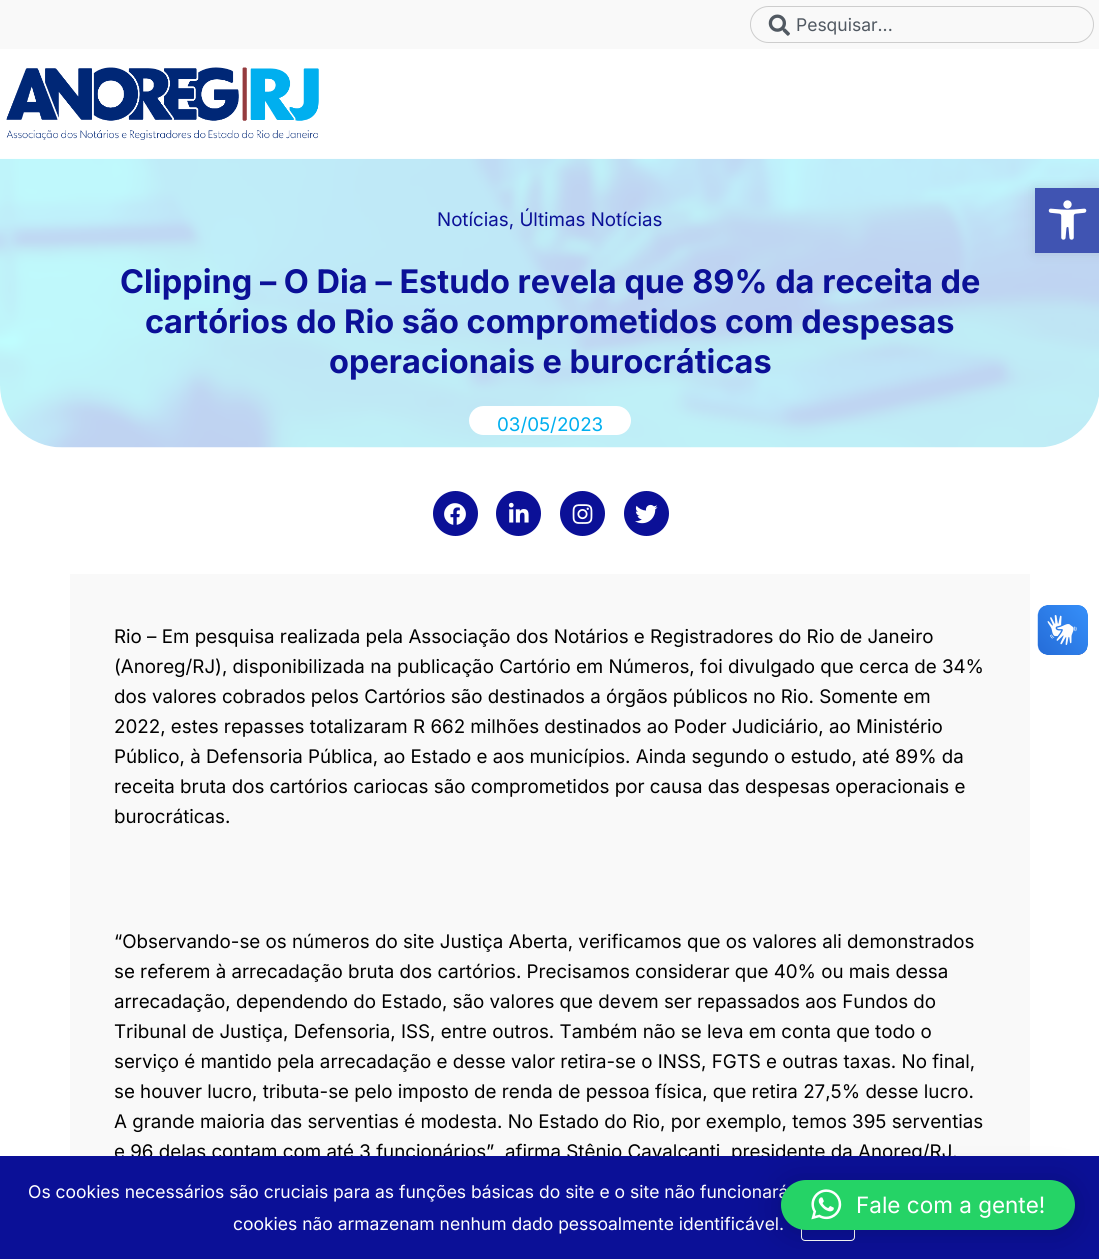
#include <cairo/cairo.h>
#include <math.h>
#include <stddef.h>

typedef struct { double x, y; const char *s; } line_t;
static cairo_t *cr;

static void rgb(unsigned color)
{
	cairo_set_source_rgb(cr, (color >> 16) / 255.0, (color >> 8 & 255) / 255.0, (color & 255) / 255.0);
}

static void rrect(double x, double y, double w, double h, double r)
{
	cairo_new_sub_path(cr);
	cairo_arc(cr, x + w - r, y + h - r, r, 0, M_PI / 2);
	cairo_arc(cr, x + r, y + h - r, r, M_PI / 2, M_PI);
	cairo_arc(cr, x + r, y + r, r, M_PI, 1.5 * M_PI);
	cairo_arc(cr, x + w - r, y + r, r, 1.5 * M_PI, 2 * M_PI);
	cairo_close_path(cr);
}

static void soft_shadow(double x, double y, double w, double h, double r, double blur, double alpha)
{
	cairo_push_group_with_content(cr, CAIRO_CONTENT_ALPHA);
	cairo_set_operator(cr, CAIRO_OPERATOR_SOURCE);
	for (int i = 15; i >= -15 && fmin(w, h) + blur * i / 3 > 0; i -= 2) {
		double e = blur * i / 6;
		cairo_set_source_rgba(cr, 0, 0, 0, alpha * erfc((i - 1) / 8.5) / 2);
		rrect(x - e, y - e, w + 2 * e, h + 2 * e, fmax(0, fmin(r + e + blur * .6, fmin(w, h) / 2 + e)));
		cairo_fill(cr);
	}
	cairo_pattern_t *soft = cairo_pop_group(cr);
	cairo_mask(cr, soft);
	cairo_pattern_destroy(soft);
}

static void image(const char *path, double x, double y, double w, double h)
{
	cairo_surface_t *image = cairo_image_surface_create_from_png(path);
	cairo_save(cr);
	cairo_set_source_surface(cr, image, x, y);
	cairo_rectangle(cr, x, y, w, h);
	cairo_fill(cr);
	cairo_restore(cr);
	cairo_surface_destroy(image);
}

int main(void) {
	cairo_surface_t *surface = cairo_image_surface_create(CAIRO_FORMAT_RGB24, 1099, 1259);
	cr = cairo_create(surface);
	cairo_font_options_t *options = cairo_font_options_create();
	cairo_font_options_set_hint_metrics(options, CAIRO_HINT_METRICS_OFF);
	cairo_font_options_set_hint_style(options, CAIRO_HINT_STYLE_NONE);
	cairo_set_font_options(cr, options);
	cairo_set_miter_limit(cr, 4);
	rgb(0xffffff);
	cairo_paint(cr);
	rgb(0xf9f9f9);
	cairo_rectangle(cr, 0, 0, 1099, 49);
	cairo_fill(cr);
	rrect(750.5, 6.5, 343, 36, 18);
	rgb(0xcdcdcd);
	cairo_set_line_width(cr, 1);
	cairo_stroke(cr);
	image("img/1.png", 768, 14, 22, 22);
	image("img/2.png", 6, 67, 313, 73);
	image("img/3.png", 0, 158, 1099, 290);
	rgb(0xffffff);
	rrect(469, 406, 162, 29, 14.5);
	cairo_fill(cr);
	rgb(0x0b1097);
	cairo_arc(cr, 455.5, 513.5, 22.5, 0, 2 * M_PI);
	cairo_fill(cr);
	image("img/4.png", 444, 503, 22, 22);
	cairo_arc(cr, 518.5, 513.5, 22.5, 0, 2 * M_PI);
	cairo_fill(cr);
	image("img/5.png", 508, 502, 21, 21);
	cairo_arc(cr, 582.5, 513.5, 22.5, 0, 2 * M_PI);
	cairo_fill(cr);
	image("img/6.png", 572, 504, 21, 20);
	cairo_arc(cr, 646.5, 513.5, 22.5, 0, 2 * M_PI);
	cairo_fill(cr);
	image("img/7.png", 635, 504, 23, 20);
	rgb(0xf9f9f9);
	cairo_rectangle(cr, 70, 574, 960, 582);
	cairo_fill(cr);
	rgb(0x000000);
	soft_shadow(1035, 188, 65, 65, 0, 6, 0.1);
	rgb(0x4054b2);
	cairo_rectangle(cr, 1035, 188, 64, 65);
	cairo_fill(cr);
	image("img/8.png", 1048, 200, 39, 40);
	image("img/9.png", 1037, 605, 51, 50);
	image("img/10.png", 1038, 605, 50, 50);
	cairo_select_font_face(cr, "Inter", CAIRO_FONT_SLANT_NORMAL, CAIRO_FONT_WEIGHT_NORMAL);
	cairo_set_font_size(cr, 17.5);
	rgb(0x515962);
	cairo_move_to(cr, 796, 31);
	cairo_show_text(cr, "Pesquisar...");
	cairo_set_font_size(cr, 18.75);
	rgb(0x0b1097);
	cairo_move_to(cr, 437, 226);
	cairo_show_text(cr, "Notícias, Últimas Notícias");
	cairo_select_font_face(cr, "Inter", CAIRO_FONT_SLANT_NORMAL, CAIRO_FONT_WEIGHT_BOLD);
	cairo_set_font_size(cr, 32.5);
	{
		static const line_t items[] = {
			{120, 293, "Clipping – O Dia – Estudo revela que 89% da receita de"},
			{145, 333, "cartórios do Rio são comprometidos com despesas"},
			{329, 373, "operacionais e burocráticas"},
		};
		for (size_t i = 0; i < sizeof items / sizeof *items; i++) {
			cairo_move_to(cr, items[i].x, items[i].y);
			cairo_show_text(cr, items[i].s);
		}
	}
	cairo_select_font_face(cr, "Inter", CAIRO_FONT_SLANT_NORMAL, CAIRO_FONT_WEIGHT_NORMAL);
	cairo_set_font_size(cr, 18.75);
	rgb(0x00afef);
	cairo_move_to(cr, 497, 431);
	cairo_show_text(cr, "03/05/2023");
	rgb(0x000000);
	{
		static const line_t items[] = {
			{114, 643, "Rio – Em pesquisa realizada pela Associação dos Notários e Registradores do Rio de Janeiro"},
			{114, 673, "(Anoreg/RJ), disponibilizada na publicação Cartório em Números, foi divulgado que cerca de 34%"},
			{114, 703, "dos valores cobrados pelos Cartórios são destinados a órgãos públicos no Rio. Somente em"},
			{114, 733, "2022, estes repasses totalizaram R 662 milhões destinados ao Poder Judiciário, ao Ministério"},
			{114, 763, "Público, à Defensoria Pública, ao Estado e aos municípios. Ainda segundo o estudo, até 89% da"},
			{114, 793, "receita bruta dos cartórios cariocas são comprometidos por causa das despesas operacionais e"},
			{114, 823, "burocráticas."},
			{114, 948, "“Observando-se os números do site Justiça Aberta, verificamos que os valores ali demonstrados"},
			{114, 978, "se referem à arrecadação bruta dos cartórios. Precisamos considerar que 40% ou mais dessa"},
			{114, 1008, "arrecadação, dependendo do Estado, são valores que devem ser repassados aos Fundos do"},
			{114, 1038, "Tribunal de Justiça, Defensoria, ISS, entre outros. Também não se leva em conta que todo o"},
			{114, 1068, "serviço é mantido pela arrecadação e desse valor retira-se o INSS, FGTS e outras taxas. No final,"},
			{114, 1098, "se houver lucro, tributa-se pelo imposto de renda de pessoa física, que retira 27,5% desse lucro."},
			{114, 1128, "A grande maioria das serventias é modesta. No Estado do Rio, por exemplo, temos 395 serventias"},
			{114, 1158, "e 96 delas contam com até 3 funcionários”, afirma Stênio Cavalcanti, presidente da Anoreg/RJ."},
		};
		for (size_t i = 0; i < sizeof items / sizeof *items; i++) {
			cairo_move_to(cr, items[i].x, items[i].y);
			cairo_show_text(cr, items[i].s);
		}
	}
	rgb(0x0b1097);
	cairo_rectangle(cr, 0, 1156, 1099, 103);
	cairo_fill(cr);
	cairo_set_font_size(cr, 17.5);
	rgb(0xffffff);
	cairo_move_to(cr, 28, 1198);
	cairo_show_text(cr, "Os cookies necessários são cruciais para as funções básicas do site e o site não funcionará");
	cairo_move_to(cr, 233, 1230);
	cairo_show_text(cr, "cookies não armazenam nenhum dado pessoalmente identificável.");
	rrect(801.5, 1209.5, 53, 31, 3.5);
	cairo_stroke(cr);
	rgb(0x000000);
	soft_shadow(781, 1183, 294, 50, 25, 20, 0.16);
	soft_shadow(781, 1181, 294, 50, 25, 4, 0.06);
	rgb(0x25d366);
	rrect(781, 1180, 294, 50, 25);
	cairo_fill(cr);
	image("img/11.png", 811, 1189, 31, 31);
	cairo_set_font_size(cr, 22.5);
	rgb(0xffffff);
	cairo_move_to(cr, 856, 1213);
	cairo_show_text(cr, "Fale com a gente!");
	cairo_surface_write_to_png(surface, "page.png");
	cairo_font_options_destroy(options);
	cairo_destroy(cr);
	cairo_surface_destroy(surface);
	return 0;
}
